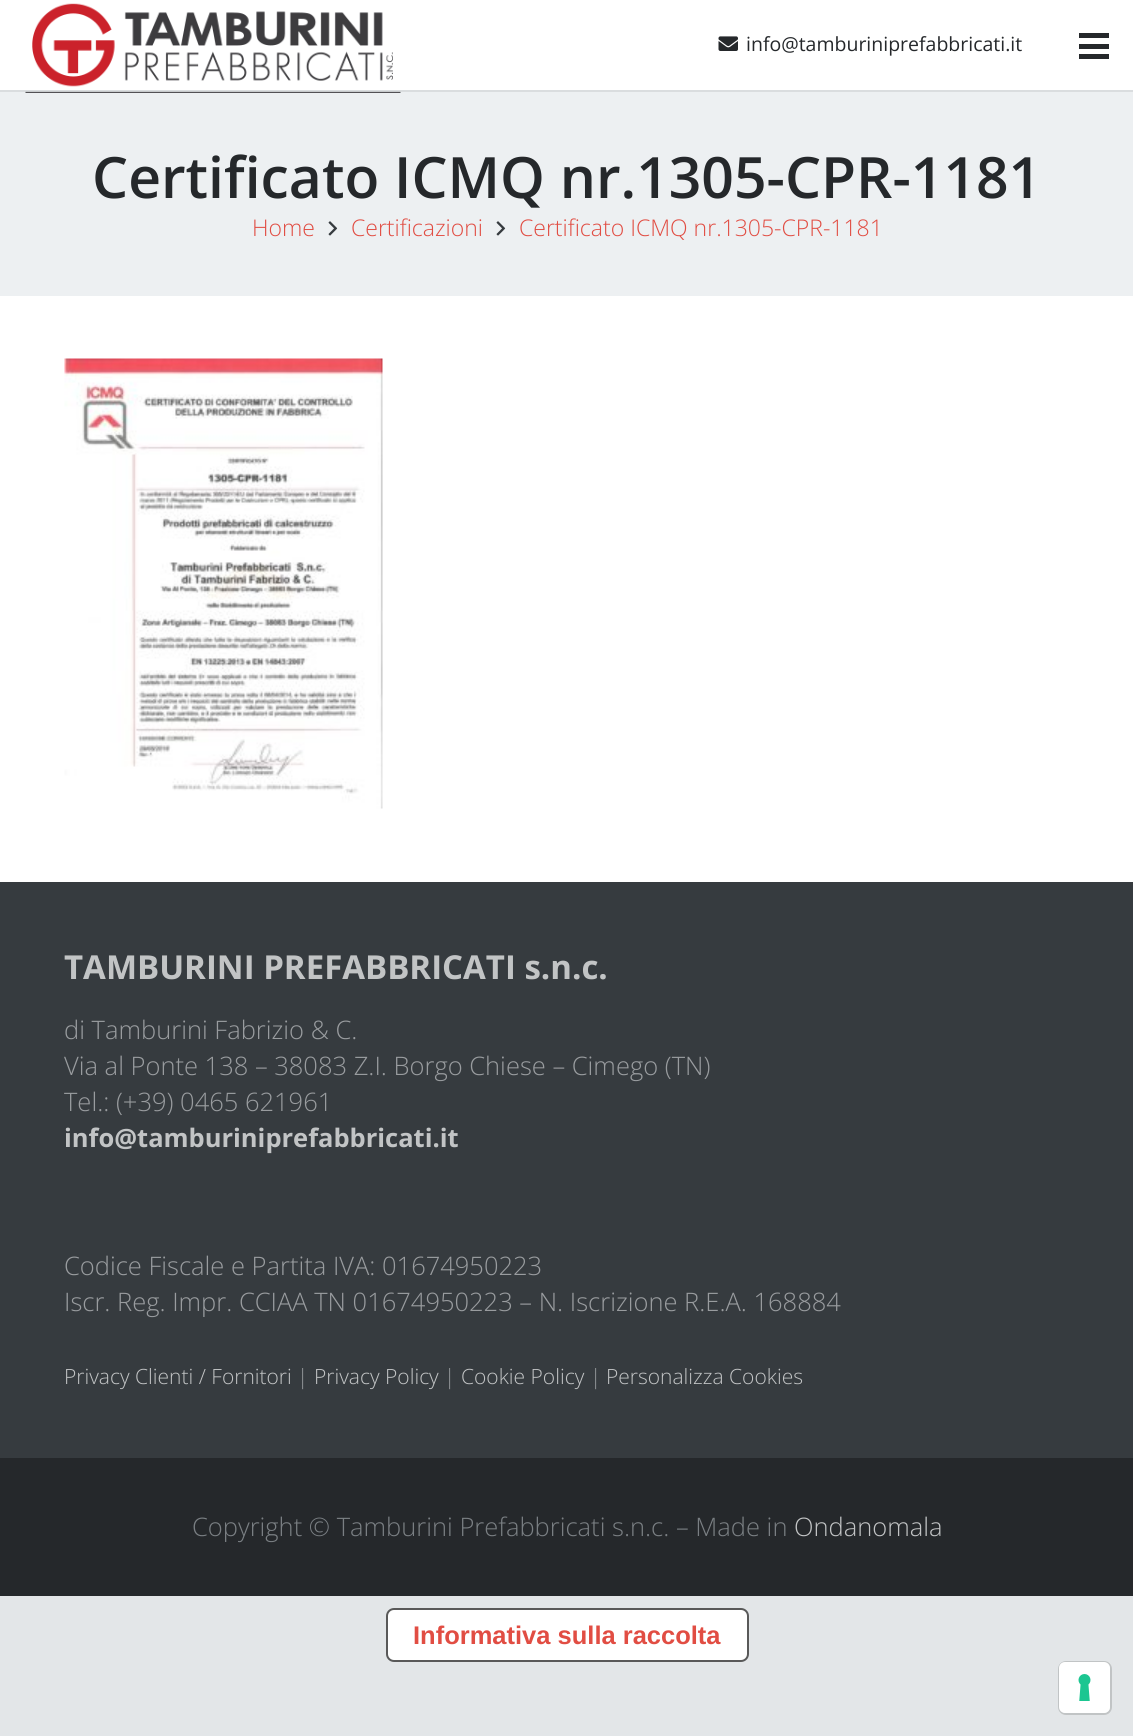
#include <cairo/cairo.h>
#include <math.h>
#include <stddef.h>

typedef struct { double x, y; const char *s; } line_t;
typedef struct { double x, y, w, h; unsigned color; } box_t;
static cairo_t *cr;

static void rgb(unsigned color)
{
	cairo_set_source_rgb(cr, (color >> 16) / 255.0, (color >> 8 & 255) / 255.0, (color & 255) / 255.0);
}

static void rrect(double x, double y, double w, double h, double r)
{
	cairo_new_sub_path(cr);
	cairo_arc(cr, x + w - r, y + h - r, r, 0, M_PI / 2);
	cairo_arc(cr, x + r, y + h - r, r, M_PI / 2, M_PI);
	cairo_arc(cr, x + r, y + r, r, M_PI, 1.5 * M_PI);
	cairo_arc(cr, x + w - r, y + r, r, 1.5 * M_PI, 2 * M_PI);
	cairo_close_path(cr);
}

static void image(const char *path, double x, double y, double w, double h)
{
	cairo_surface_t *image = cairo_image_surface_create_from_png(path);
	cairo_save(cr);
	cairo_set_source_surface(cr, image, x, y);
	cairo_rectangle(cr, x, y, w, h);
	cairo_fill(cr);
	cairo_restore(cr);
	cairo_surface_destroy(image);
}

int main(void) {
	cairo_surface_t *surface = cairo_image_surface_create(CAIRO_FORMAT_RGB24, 1133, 1736);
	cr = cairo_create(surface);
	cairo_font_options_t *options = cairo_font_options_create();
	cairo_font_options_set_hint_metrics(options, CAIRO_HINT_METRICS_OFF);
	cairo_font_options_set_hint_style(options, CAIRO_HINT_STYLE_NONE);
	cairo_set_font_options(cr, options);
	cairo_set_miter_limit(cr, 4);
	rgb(0xe3e6e8);
	cairo_paint(cr);
	{
		static const box_t items[] = {
			{0, 0, 1133, 882, 0xffffff},
			{0, 90, 1133, 2, 0xdadddf},
			{0, 92, 1133, 204, 0xedf0f2},
		};
		for (size_t i = 0; i < sizeof items / sizeof *items; i++) {
			rgb(items[i].color);
			cairo_rectangle(cr, items[i].x, items[i].y, items[i].w, items[i].h);
			cairo_fill(cr);
		}
	}
	image("img/1.png", 25, 3, 376, 90);
	image("img/2.png", 718, 36, 20, 15);
	{
		static const box_t items[] = {
			{1079, 44, 30, 5, 0x25282b},
			{1079, 33, 30, 5, 0x25282b},
			{1079, 54, 30, 5, 0x25282b},
		};
		for (size_t i = 0; i < sizeof items / sizeof *items; i++) {
			rgb(items[i].color);
			cairo_rectangle(cr, items[i].x, items[i].y, items[i].w, items[i].h);
			cairo_fill(cr);
		}
	}
	image("img/3.png", 328, 221, 10, 15);
	image("img/3.png", 496, 221, 10, 15);
	image("img/4.png", 64, 358, 319, 451);
	rgb(0x363b3f);
	cairo_rectangle(cr, 0, 882, 1133, 576);
	cairo_fill(cr);
	rgb(0x25282b);
	cairo_rectangle(cr, 0, 1458, 1133, 138);
	cairo_fill(cr);
	rgb(0xffffff);
	rrect(387, 1609, 361, 52, 7);
	cairo_fill_preserve(cr);
	rgb(0x595959);
	cairo_stroke(cr);
	rrect(1059, 1662, 52, 52, 7);
	rgb(0xc1c4c5);
	cairo_stroke(cr);
	rgb(0xffffff);
	rrect(1059, 1662, 51, 51, 6);
	cairo_fill(cr);
	image("img/5.png", 1078, 1674, 13, 27);
	cairo_select_font_face(cr, "Open Sans", CAIRO_FONT_SLANT_NORMAL, CAIRO_FONT_WEIGHT_NORMAL);
	cairo_set_font_size(cr, 19.5);
	rgb(0x25282b);
	cairo_move_to(cr, 746, 51);
	cairo_show_text(cr, "info@tamburiniprefabbricati.it");
	cairo_select_font_face(cr, "Open Sans SemiBold", CAIRO_FONT_SLANT_NORMAL, CAIRO_FONT_WEIGHT_NORMAL);
	cairo_set_font_size(cr, 57);
	cairo_move_to(cr, 92, 198);
	cairo_show_text(cr, "Certificato ICMQ nr.1305-CPR-1181");
	cairo_select_font_face(cr, "Open Sans Light", CAIRO_FONT_SLANT_NORMAL, CAIRO_FONT_WEIGHT_NORMAL);
	cairo_set_font_size(cr, 23);
	rgb(0xe14d43);
	{
		static const line_t items[] = {
			{252, 236, "Home"},
			{351, 236, "Certificazioni"},
			{519, 236, "Certificato ICMQ nr.1305-CPR-1181"},
		};
		for (size_t i = 0; i < sizeof items / sizeof *items; i++) {
			cairo_move_to(cr, items[i].x, items[i].y);
			cairo_show_text(cr, items[i].s);
		}
	}
	cairo_select_font_face(cr, "Open Sans", CAIRO_FONT_SLANT_NORMAL, CAIRO_FONT_WEIGHT_BOLD);
	cairo_set_font_size(cr, 33);
	rgb(0xc2c4c5);
	cairo_move_to(cr, 64, 979);
	cairo_show_text(cr, "TAMBURINI PREFABBRICATI s.n.c.");
	cairo_select_font_face(cr, "Open Sans Light", CAIRO_FONT_SLANT_NORMAL, CAIRO_FONT_WEIGHT_NORMAL);
	cairo_set_font_size(cr, 25.5);
	rgb(0x999c9f);
	{
		static const line_t items[] = {
			{64, 1039, "di Tamburini Fabrizio & C."},
			{64, 1075, "Via al Ponte 138 – 38083 Z.I. Borgo Chiese – Cimego (TN)"},
			{64, 1111, "Tel.: (+39) 0465 621961"},
		};
		for (size_t i = 0; i < sizeof items / sizeof *items; i++) {
			cairo_move_to(cr, items[i].x, items[i].y);
			cairo_show_text(cr, items[i].s);
		}
	}
	cairo_select_font_face(cr, "Open Sans", CAIRO_FONT_SLANT_NORMAL, CAIRO_FONT_WEIGHT_BOLD);
	rgb(0xc2c4c5);
	cairo_move_to(cr, 64, 1147);
	cairo_show_text(cr, "info@tamburiniprefabbricati.it");
	cairo_select_font_face(cr, "Open Sans Light", CAIRO_FONT_SLANT_NORMAL, CAIRO_FONT_WEIGHT_NORMAL);
	rgb(0x999c9f);
	cairo_move_to(cr, 64, 1275);
	cairo_show_text(cr, "Codice Fiscale e Partita IVA: 01674950223");
	cairo_move_to(cr, 64, 1311);
	cairo_show_text(cr, "Iscr. Reg. Impr. CCIAA TN 01674950223 – N. Iscrizione R.E.A. 168884");
	cairo_set_font_size(cr, 21);
	rgb(0xc2c4c5);
	cairo_move_to(cr, 64, 1384);
	cairo_show_text(cr, "Privacy Clienti / Fornitori");
	rgb(0x999c9f);
	cairo_move_to(cr, 297, 1384);
	cairo_show_text(cr, "|");
	rgb(0xc2c4c5);
	cairo_move_to(cr, 314, 1384);
	cairo_show_text(cr, "Privacy Policy");
	rgb(0x999c9f);
	cairo_move_to(cr, 444, 1384);
	cairo_show_text(cr, "|");
	rgb(0xc2c4c5);
	cairo_move_to(cr, 461, 1384);
	cairo_show_text(cr, "Cookie Policy");
	rgb(0x999c9f);
	cairo_move_to(cr, 590, 1384);
	cairo_show_text(cr, "|");
	rgb(0xc2c4c5);
	cairo_move_to(cr, 606, 1384);
	cairo_show_text(cr, "Personalizza Cookies");
	cairo_set_font_size(cr, 25.5);
	rgb(0x7a7f83);
	cairo_move_to(cr, 192, 1536);
	cairo_show_text(cr, "Copyright © Tamburini Prefabbricati s.n.c. – Made in");
	rgb(0xc2c4c5);
	cairo_move_to(cr, 794, 1536);
	cairo_show_text(cr, "Ondanomala");
	cairo_select_font_face(cr, "Liberation Sans", CAIRO_FONT_SLANT_NORMAL, CAIRO_FONT_WEIGHT_BOLD);
	rgb(0xe14d43);
	cairo_move_to(cr, 413, 1644);
	cairo_show_text(cr, "Informativa sulla raccolta");
	cairo_surface_write_to_png(surface, "page.png");
	cairo_font_options_destroy(options);
	cairo_destroy(cr);
	cairo_surface_destroy(surface);
	return 0;
}
